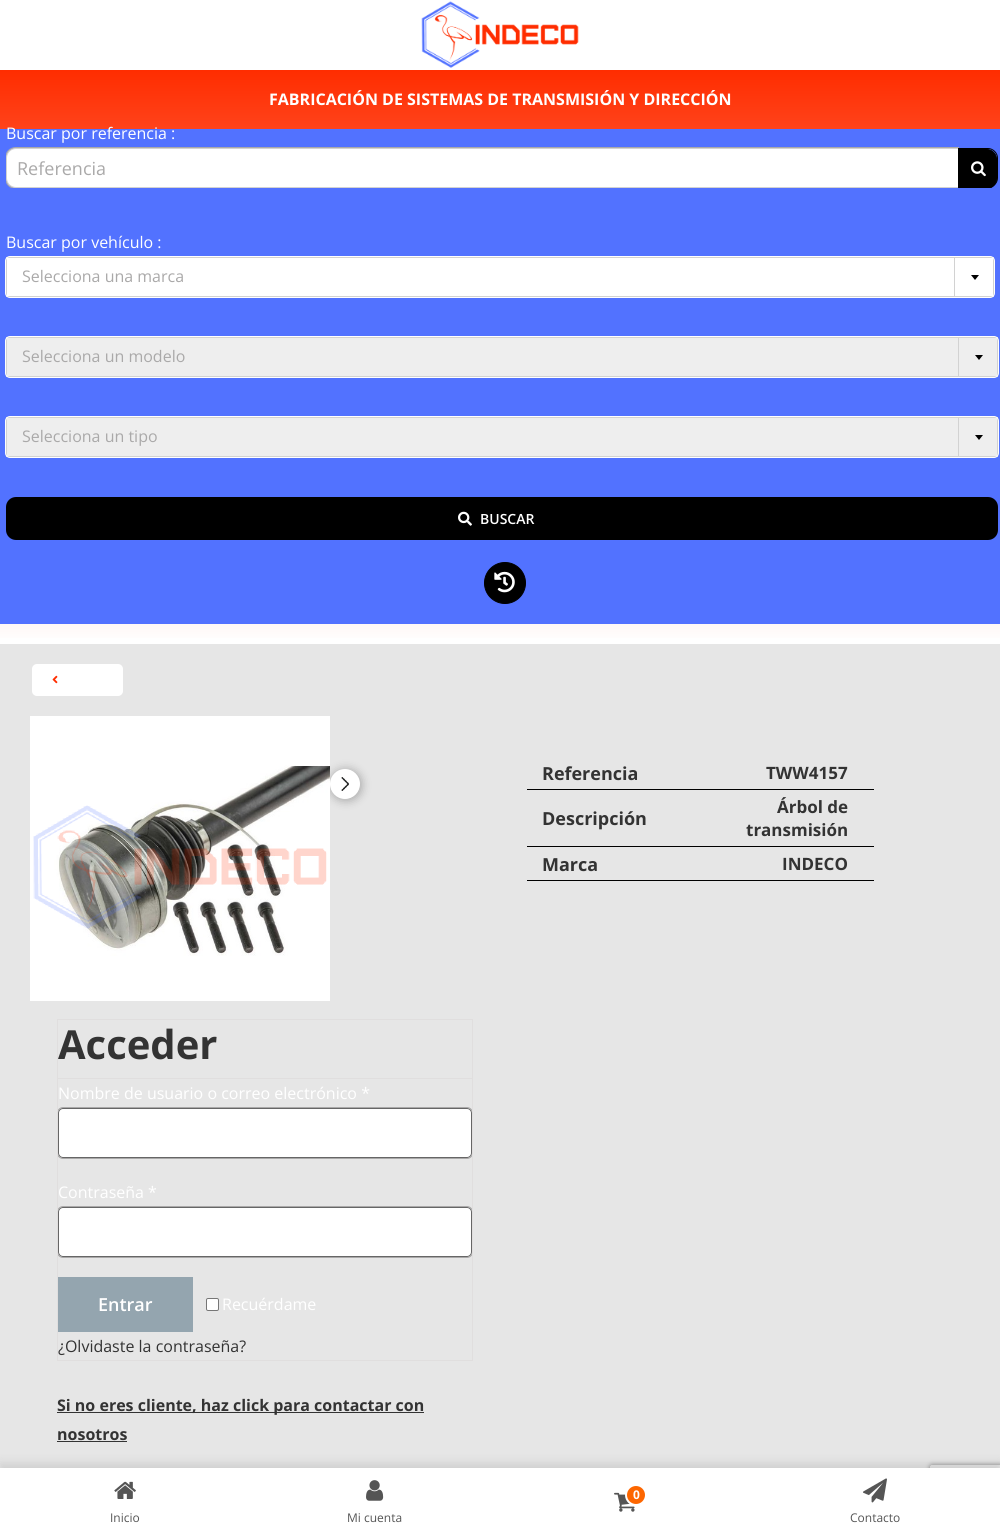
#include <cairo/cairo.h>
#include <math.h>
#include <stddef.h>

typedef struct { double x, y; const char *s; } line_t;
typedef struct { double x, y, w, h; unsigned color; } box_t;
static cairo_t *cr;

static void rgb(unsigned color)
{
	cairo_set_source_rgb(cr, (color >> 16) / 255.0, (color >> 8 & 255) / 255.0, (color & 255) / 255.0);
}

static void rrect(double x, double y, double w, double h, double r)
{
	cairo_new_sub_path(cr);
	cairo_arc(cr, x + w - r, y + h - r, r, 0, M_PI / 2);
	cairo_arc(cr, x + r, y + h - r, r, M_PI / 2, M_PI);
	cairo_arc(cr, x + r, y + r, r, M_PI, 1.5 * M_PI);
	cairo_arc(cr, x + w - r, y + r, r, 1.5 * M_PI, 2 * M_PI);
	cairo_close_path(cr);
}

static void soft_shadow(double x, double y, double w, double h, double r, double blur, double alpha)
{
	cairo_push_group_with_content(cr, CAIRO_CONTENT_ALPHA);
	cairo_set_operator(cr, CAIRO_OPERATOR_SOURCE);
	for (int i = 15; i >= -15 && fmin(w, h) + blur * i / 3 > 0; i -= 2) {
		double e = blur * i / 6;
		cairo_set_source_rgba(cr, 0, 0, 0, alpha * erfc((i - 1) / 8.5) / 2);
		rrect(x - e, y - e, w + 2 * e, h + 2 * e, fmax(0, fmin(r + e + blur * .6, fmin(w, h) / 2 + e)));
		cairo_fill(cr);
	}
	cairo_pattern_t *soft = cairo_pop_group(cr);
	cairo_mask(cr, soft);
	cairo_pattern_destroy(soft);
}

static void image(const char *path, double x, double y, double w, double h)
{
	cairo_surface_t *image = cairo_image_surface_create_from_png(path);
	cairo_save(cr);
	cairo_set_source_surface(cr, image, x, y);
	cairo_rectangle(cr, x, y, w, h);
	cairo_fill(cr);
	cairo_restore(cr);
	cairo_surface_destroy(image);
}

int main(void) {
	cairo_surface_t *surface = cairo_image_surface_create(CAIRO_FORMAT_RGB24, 1000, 1539);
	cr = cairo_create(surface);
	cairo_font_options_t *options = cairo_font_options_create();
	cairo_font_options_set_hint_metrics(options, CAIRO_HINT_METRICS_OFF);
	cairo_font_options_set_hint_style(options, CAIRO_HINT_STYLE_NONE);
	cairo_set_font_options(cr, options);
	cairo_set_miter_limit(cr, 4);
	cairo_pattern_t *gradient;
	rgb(0xffffff);
	cairo_paint(cr);
	image("img/1.png", 421, 1, 158, 67);
	gradient = cairo_pattern_create_linear(500, 70, 500, 644);
	cairo_pattern_add_color_stop_rgba(gradient, 0, 1, 0.176, 0, 1);
	cairo_pattern_add_color_stop_rgba(gradient, 1, 1, 1, 1, 1);
	cairo_set_source(cr, gradient);
	cairo_pattern_destroy(gradient);
	cairo_rectangle(cr, 0, 70, 1000, 568);
	cairo_fill(cr);
	rgb(0x5272ff);
	cairo_rectangle(cr, 0, 129, 1000, 495);
	cairo_fill(cr);
	rgb(0xffffff);
	cairo_new_path(cr);
	cairo_move_to(cr, 16, 148);
	cairo_line_to(cr, 958, 148);
	cairo_line_to(cr, 958, 188);
	cairo_line_to(cr, 16, 188);
	cairo_curve_to(cr, 10.5, 188, 6, 183.5, 6, 178);
	cairo_line_to(cr, 6, 158);
	cairo_curve_to(cr, 6, 152.5, 10.5, 148, 16, 148);
	cairo_close_path(cr);
	cairo_fill(cr);
	rgb(0xd2d2d2);
	cairo_set_fill_rule(cr, CAIRO_FILL_RULE_EVEN_ODD);
	cairo_new_path(cr);
	cairo_move_to(cr, 16, 148);
	cairo_line_to(cr, 958, 148);
	cairo_line_to(cr, 958, 188);
	cairo_line_to(cr, 16, 188);
	cairo_curve_to(cr, 10, 188, 6, 184, 6, 178);
	cairo_line_to(cr, 6, 158);
	cairo_curve_to(cr, 6, 152, 10, 148, 16, 148);
	cairo_close_path(cr);
	cairo_move_to(cr, 16, 149);
	cairo_line_to(cr, 958, 149);
	cairo_line_to(cr, 958, 187);
	cairo_line_to(cr, 16, 187);
	cairo_curve_to(cr, 11, 187, 7, 183, 7, 178);
	cairo_line_to(cr, 7, 158);
	cairo_curve_to(cr, 7, 153, 11, 149, 16, 149);
	cairo_close_path(cr);
	cairo_fill(cr);
	cairo_save(cr);
	cairo_set_fill_rule(cr, CAIRO_FILL_RULE_WINDING);
	cairo_rectangle(cr, 6, 119, 992, 69);
	cairo_clip(cr);
	cairo_new_path(cr);
	cairo_move_to(cr, 16, 147.5);
	cairo_line_to(cr, 958.5, 147.5);
	cairo_line_to(cr, 958.5, 188.5);
	cairo_line_to(cr, 16, 188.5);
	cairo_curve_to(cr, 10, 188.5, 5.5, 184, 5.5, 178);
	cairo_line_to(cr, 5.5, 158);
	cairo_curve_to(cr, 5.5, 152, 10, 147.5, 16, 147.5);
	cairo_close_path(cr);
	rgb(0xaaa9a9);
	cairo_set_line_width(cr, 1);
	cairo_stroke(cr);
	cairo_restore(cr);
	cairo_new_path(cr);
	cairo_move_to(cr, 958.5, 148.5);
	cairo_line_to(cr, 988, 148.5);
	cairo_curve_to(cr, 993, 148.5, 997.5, 153, 997.5, 158);
	cairo_line_to(cr, 997.5, 178);
	cairo_curve_to(cr, 997.5, 183, 993, 187.5, 988, 187.5);
	cairo_line_to(cr, 958.5, 187.5);
	cairo_close_path(cr);
	rgb(0x000000);
	cairo_set_line_width(cr, 1);
	cairo_stroke(cr);
	cairo_save(cr);
	cairo_set_fill_rule(cr, CAIRO_FILL_RULE_WINDING);
	cairo_rectangle(cr, 6, 119, 992, 69);
	cairo_clip(cr);
	cairo_new_path(cr);
	cairo_move_to(cr, 959.5, 149.5);
	cairo_line_to(cr, 987, 149.5);
	cairo_curve_to(cr, 992, 149.5, 996.5, 154, 996.5, 159);
	cairo_line_to(cr, 996.5, 179);
	cairo_curve_to(cr, 996.5, 184, 992, 188.5, 987, 188.5);
	cairo_line_to(cr, 959.5, 188.5);
	cairo_close_path(cr);
	cairo_fill_preserve(cr);
	cairo_stroke(cr);
	cairo_restore(cr);
	image("img/2.png", 971, 161, 15, 16);
	rgb(0xffffff);
	cairo_rectangle(cr, 6.5, 257.5, 987, 39);
	cairo_fill_preserve(cr);
	rgb(0xd2d2d2);
	cairo_stroke(cr);
	rrect(5.5, 256.5, 989, 41, 4.5);
	rgb(0xffffff);
	cairo_stroke(cr);
	rgb(0xd2d2d2);
	cairo_rectangle(cr, 954, 257, 1, 40);
	cairo_fill(cr);
	rgb(0x000000);
	cairo_set_fill_rule(cr, CAIRO_FILL_RULE_WINDING);
	cairo_new_path(cr);
	cairo_move_to(cr, 971, 275);
	cairo_line_to(cr, 979, 275);
	cairo_line_to(cr, 975, 280);
	cairo_close_path(cr);
	cairo_fill(cr);
	rgb(0xeeeeee);
	cairo_rectangle(cr, 6.5, 337.5, 991, 39);
	cairo_fill_preserve(cr);
	rgb(0xd2d2d2);
	cairo_stroke(cr);
	rrect(5.5, 336.5, 993, 41, 4.5);
	rgb(0xffffff);
	cairo_stroke(cr);
	rgb(0xd2d2d2);
	cairo_rectangle(cr, 958, 337, 1, 40);
	cairo_fill(cr);
	rgb(0x000000);
	cairo_new_path(cr);
	cairo_move_to(cr, 975, 355);
	cairo_line_to(cr, 983, 355);
	cairo_line_to(cr, 979, 360);
	cairo_close_path(cr);
	cairo_fill(cr);
	rgb(0xeeeeee);
	cairo_rectangle(cr, 6.5, 417.5, 991, 39);
	cairo_fill_preserve(cr);
	rgb(0xd2d2d2);
	cairo_stroke(cr);
	rrect(5.5, 416.5, 993, 41, 4.5);
	rgb(0xffffff);
	cairo_stroke(cr);
	rgb(0xd2d2d2);
	cairo_rectangle(cr, 958, 417, 1, 40);
	cairo_fill(cr);
	rgb(0x000000);
	cairo_new_path(cr);
	cairo_move_to(cr, 975, 435);
	cairo_line_to(cr, 983, 435);
	cairo_line_to(cr, 979, 440);
	cairo_close_path(cr);
	cairo_fill(cr);
	rrect(6, 497, 992, 43, 10);
	cairo_fill(cr);
	image("img/3.png", 458, 511, 14, 15);
	cairo_arc(cr, 505, 583, 20.5, 0, 2 * M_PI);
	cairo_fill_preserve(cr);
	cairo_stroke(cr);
	image("img/4.png", 494, 571, 21, 22);
	rgb(0xe6e6e6);
	cairo_rectangle(cr, 0, 644, 1000, 824);
	cairo_fill(cr);
	rgb(0xffffff);
	rrect(32, 664, 91, 32, 5);
	cairo_fill(cr);
	image("img/5.png", 52, 675, 6, 9);
	rgb(0x000000);
	soft_shadow(331, 770, 30, 30, 15, 5, 0.3);
	rgb(0xffffff);
	cairo_rectangle(cr, 30, 716, 300, 285);
	cairo_fill(cr);
	image("img/6.png", 33, 765, 297, 191);
	cairo_arc(cr, 345, 784, 15, 0, 2 * M_PI);
	cairo_fill(cr);
	image("img/7.png", 341, 777, 8, 14);
	{
		static const box_t items[] = {
			{527, 789, 347, 1, 0x000000},
			{527, 846, 347, 1, 0x000000},
			{527, 880, 347, 1, 0x000000},
		};
		for (size_t i = 0; i < sizeof items / sizeof *items; i++) {
			rgb(items[i].color);
			cairo_rectangle(cr, items[i].x, items[i].y, items[i].w, items[i].h);
			cairo_fill(cr);
		}
	}
	cairo_rectangle(cr, 57.5, 1019.5, 415, 341);
	rgb(0xe0dede);
	cairo_stroke(cr);
	cairo_rectangle(cr, 58, 1078, 414, 1);
	cairo_fill(cr);
	rgb(0xffffff);
	rrect(58.5, 1108.5, 413, 49, 4.5);
	cairo_fill_preserve(cr);
	rgb(0x666666);
	cairo_stroke(cr);
	cairo_save(cr);
	cairo_rectangle(cr, 58, 1020, 414, 340);
	cairo_clip(cr);
	rrect(57.5, 1107.5, 415, 51, 5.5);
	rgb(0xaaa9a9);
	cairo_stroke(cr);
	cairo_restore(cr);
	rgb(0xffffff);
	rrect(58.5, 1207.5, 413, 49, 4.5);
	cairo_fill_preserve(cr);
	rgb(0x666666);
	cairo_stroke(cr);
	cairo_save(cr);
	cairo_rectangle(cr, 58, 1020, 414, 340);
	cairo_clip(cr);
	rrect(57.5, 1206.5, 415, 51, 5.5);
	rgb(0xaaa9a9);
	cairo_stroke(cr);
	cairo_restore(cr);
	rgb(0x94a5af);
	cairo_rectangle(cr, 58, 1277, 135, 55);
	cairo_fill(cr);
	rgb(0xffffff);
	rrect(206.5, 1298.5, 12, 12, 1.5);
	cairo_fill_preserve(cr);
	rgb(0x767676);
	cairo_stroke(cr);
	rgb(0x333333);
	cairo_rectangle(cr, 57, 1412, 367, 1);
	cairo_fill(cr);
	cairo_rectangle(cr, 57, 1441, 70, 1);
	cairo_fill(cr);
	rgb(0x000000);
	soft_shadow(0, 1463, 1000, 71, 0, 5, 0.1);
	cairo_save(cr);
	cairo_set_fill_rule(cr, CAIRO_FILL_RULE_EVEN_ODD);
	cairo_new_path(cr);
	cairo_move_to(cr, 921, 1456);
	cairo_line_to(cr, 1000, 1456);
	cairo_line_to(cr, 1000, 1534);
	cairo_line_to(cr, 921, 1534);
	cairo_close_path(cr);
	cairo_move_to(cr, 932, 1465);
	cairo_line_to(cr, 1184, 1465);
	cairo_curve_to(cr, 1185, 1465, 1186, 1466, 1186, 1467);
	cairo_line_to(cr, 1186, 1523);
	cairo_curve_to(cr, 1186, 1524, 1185, 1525, 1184, 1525);
	cairo_line_to(cr, 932, 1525);
	cairo_curve_to(cr, 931, 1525, 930, 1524, 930, 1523);
	cairo_line_to(cr, 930, 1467);
	cairo_curve_to(cr, 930, 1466, 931, 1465, 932, 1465);
	cairo_close_path(cr);
	cairo_clip(cr);
	rgb(0x808080);
	soft_shadow(930, 1465, 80, 60, 2, 2.5, 1);
	cairo_restore(cr);
	rgb(0xffffff);
	cairo_rectangle(cr, 0, 1468, 1000, 71);
	cairo_fill(cr);
	image("img/8.png", 614, 1492, 21, 20);
	rgb(0xfd6600);
	cairo_arc(cr, 636, 1495, 10, 0, 2 * M_PI);
	cairo_fill_preserve(cr);
	rgb(0xffffff);
	cairo_set_line_width(cr, 2);
	cairo_stroke(cr);
	image("img/9.png", 114, 1481, 22, 18);
	image("img/10.png", 366, 1480, 18, 21);
	image("img/11.png", 863, 1478, 24, 25);
	cairo_select_font_face(cr, "Open Sans", CAIRO_FONT_SLANT_NORMAL, CAIRO_FONT_WEIGHT_BOLD);
	cairo_set_font_size(cr, 16);
	cairo_move_to(cr, 269, 105);
	cairo_show_text(cr, "FABRICACIÓN DE SISTEMAS DE TRANSMISIÓN Y DIRECCIÓN");
	cairo_select_font_face(cr, "Open Sans", CAIRO_FONT_SLANT_NORMAL, CAIRO_FONT_WEIGHT_NORMAL);
	cairo_move_to(cr, 6, 139);
	cairo_show_text(cr, "Buscar por referencia :");
	cairo_set_font_size(cr, 18);
	rgb(0xaaa9a9);
	cairo_move_to(cr, 17, 175);
	cairo_show_text(cr, "Referencia");
	cairo_set_font_size(cr, 16);
	rgb(0xffffff);
	cairo_move_to(cr, 6, 248);
	cairo_show_text(cr, "Buscar por vehículo :");
	rgb(0xaaa9a9);
	{
		static const line_t items[] = {
			{22, 282, "Selecciona una marca"},
			{22, 362, "Selecciona un modelo"},
			{22, 442, "Selecciona un tipo"},
		};
		for (size_t i = 0; i < sizeof items / sizeof *items; i++) {
			cairo_move_to(cr, items[i].x, items[i].y);
			cairo_show_text(cr, items[i].s);
		}
	}
	cairo_select_font_face(cr, "Open Sans SemiBold", CAIRO_FONT_SLANT_NORMAL, CAIRO_FONT_WEIGHT_NORMAL);
	cairo_set_font_size(cr, 14);
	rgb(0xffffff);
	cairo_move_to(cr, 480, 524);
	cairo_show_text(cr, "BUSCAR");
	cairo_select_font_face(cr, "Open Sans", CAIRO_FONT_SLANT_NORMAL, CAIRO_FONT_WEIGHT_BOLD);
	cairo_set_font_size(cr, 18);
	rgb(0x333333);
	cairo_move_to(cr, 542, 780);
	cairo_show_text(cr, "Referencia");
	cairo_set_font_size(cr, 17);
	cairo_move_to(cr, 766, 779);
	cairo_show_text(cr, "TWW4157");
	cairo_set_font_size(cr, 18);
	cairo_move_to(cr, 542, 825);
	cairo_show_text(cr, "Descripción");
	cairo_set_font_size(cr, 17);
	cairo_move_to(cr, 777, 813);
	cairo_show_text(cr, "Árbol de");
	cairo_move_to(cr, 746, 836);
	cairo_show_text(cr, "transmisión");
	cairo_set_font_size(cr, 18);
	cairo_move_to(cr, 542, 871);
	cairo_show_text(cr, "Marca");
	cairo_set_font_size(cr, 17);
	cairo_move_to(cr, 782, 870);
	cairo_show_text(cr, "INDECO");
	cairo_set_font_size(cr, 40);
	cairo_move_to(cr, 58, 1059);
	cairo_show_text(cr, "Acceder");
	cairo_select_font_face(cr, "Open Sans", CAIRO_FONT_SLANT_NORMAL, CAIRO_FONT_WEIGHT_NORMAL);
	cairo_set_font_size(cr, 16);
	rgb(0xffffff);
	cairo_move_to(cr, 58, 1099);
	cairo_show_text(cr, "Nombre de usuario o correo electrónico *");
	cairo_move_to(cr, 58, 1198);
	cairo_show_text(cr, "Contraseña *");
	cairo_select_font_face(cr, "Open Sans SemiBold", CAIRO_FONT_SLANT_NORMAL, CAIRO_FONT_WEIGHT_NORMAL);
	cairo_set_font_size(cr, 18);
	cairo_move_to(cr, 98, 1311);
	cairo_show_text(cr, "Entrar");
	cairo_select_font_face(cr, "Open Sans", CAIRO_FONT_SLANT_NORMAL, CAIRO_FONT_WEIGHT_NORMAL);
	cairo_set_font_size(cr, 16);
	cairo_move_to(cr, 222, 1310);
	cairo_show_text(cr, "Recuérdame");
	rgb(0x333333);
	cairo_move_to(cr, 58, 1352);
	cairo_show_text(cr, "¿Olvidaste la contraseña?");
	cairo_select_font_face(cr, "Open Sans", CAIRO_FONT_SLANT_NORMAL, CAIRO_FONT_WEIGHT_BOLD);
	cairo_move_to(cr, 57, 1411);
	cairo_show_text(cr, "Si no eres cliente, haz click para contactar con");
	cairo_move_to(cr, 57, 1440);
	cairo_show_text(cr, "nosotros");
	cairo_set_font_size(cr, 12);
	rgb(0xffffff);
	cairo_move_to(cr, 633, 1499);
	cairo_show_text(cr, "0");
	cairo_select_font_face(cr, "Open Sans", CAIRO_FONT_SLANT_NORMAL, CAIRO_FONT_WEIGHT_NORMAL);
	rgb(0x555555);
	{
		static const line_t items[] = {
			{110, 1522, "Inicio"},
			{347, 1522, "Mi cuenta"},
			{850, 1522, "Contacto"},
		};
		for (size_t i = 0; i < sizeof items / sizeof *items; i++) {
			cairo_move_to(cr, items[i].x, items[i].y);
			cairo_show_text(cr, items[i].s);
		}
	}
	cairo_surface_write_to_png(surface, "page.png");
	cairo_font_options_destroy(options);
	cairo_destroy(cr);
	cairo_surface_destroy(surface);
	return 0;
}
